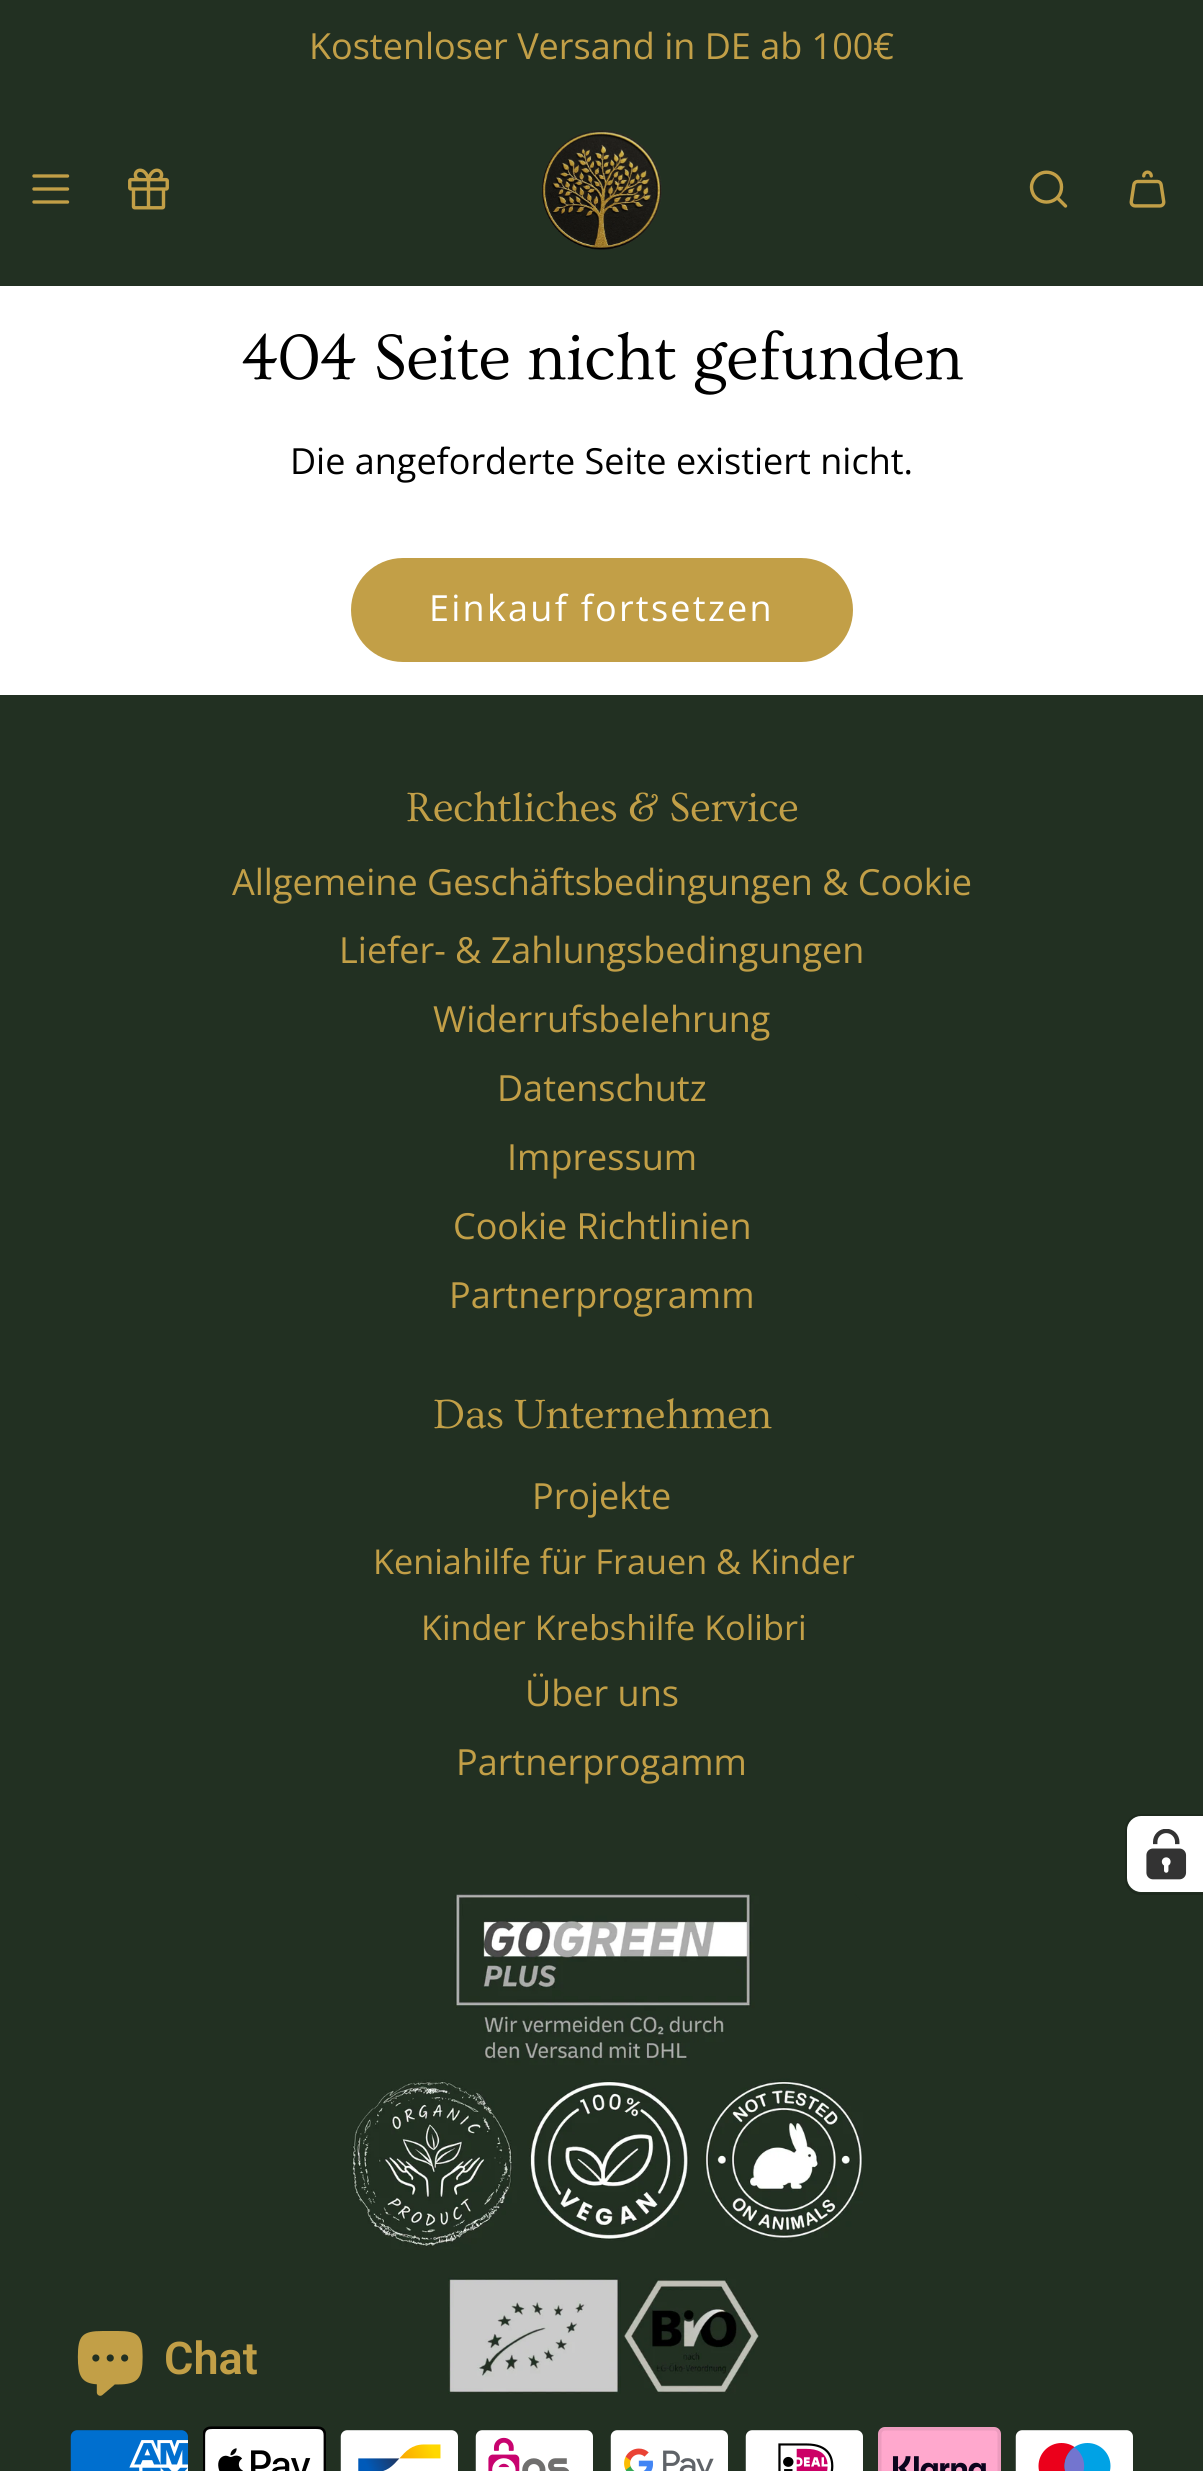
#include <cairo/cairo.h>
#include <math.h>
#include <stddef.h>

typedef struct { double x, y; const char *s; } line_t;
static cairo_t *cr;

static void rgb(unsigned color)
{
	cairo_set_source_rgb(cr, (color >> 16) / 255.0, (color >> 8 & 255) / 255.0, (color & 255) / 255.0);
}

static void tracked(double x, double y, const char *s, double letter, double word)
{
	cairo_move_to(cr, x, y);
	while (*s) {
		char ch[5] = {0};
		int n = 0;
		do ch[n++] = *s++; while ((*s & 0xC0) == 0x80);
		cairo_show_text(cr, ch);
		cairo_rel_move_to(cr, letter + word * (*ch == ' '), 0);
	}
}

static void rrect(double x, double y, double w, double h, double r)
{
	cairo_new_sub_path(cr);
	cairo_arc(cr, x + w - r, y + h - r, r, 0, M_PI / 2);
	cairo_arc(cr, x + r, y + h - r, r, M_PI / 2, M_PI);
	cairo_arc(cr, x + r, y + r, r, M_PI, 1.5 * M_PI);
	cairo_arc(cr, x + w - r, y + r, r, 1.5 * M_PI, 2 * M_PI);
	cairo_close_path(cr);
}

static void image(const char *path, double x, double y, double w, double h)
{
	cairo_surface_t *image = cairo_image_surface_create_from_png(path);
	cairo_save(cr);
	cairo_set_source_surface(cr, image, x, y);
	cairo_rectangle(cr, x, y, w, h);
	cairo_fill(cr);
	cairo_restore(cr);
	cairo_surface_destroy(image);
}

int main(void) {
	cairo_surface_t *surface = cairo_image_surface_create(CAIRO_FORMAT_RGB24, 1203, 2471);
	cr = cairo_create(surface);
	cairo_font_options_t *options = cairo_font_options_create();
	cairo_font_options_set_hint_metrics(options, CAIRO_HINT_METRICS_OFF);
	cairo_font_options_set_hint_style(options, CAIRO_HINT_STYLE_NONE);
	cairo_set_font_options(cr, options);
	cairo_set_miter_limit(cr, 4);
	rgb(0xffffff);
	cairo_paint(cr);
	rgb(0x223022);
	cairo_rectangle(cr, 0, 0, 1203, 286);
	cairo_fill(cr);
	cairo_new_path(cr);
	cairo_move_to(cr, 34, 176);
	cairo_line_to(cr, 67.5, 176);
	cairo_move_to(cr, 34, 189);
	cairo_line_to(cr, 67.5, 189);
	cairo_move_to(cr, 34, 202);
	cairo_line_to(cr, 67.5, 202);
	rgb(0xc29f47);
	cairo_set_line_width(cr, 3.4);
	cairo_set_line_cap(cr, CAIRO_LINE_CAP_ROUND);
	cairo_set_line_join(cr, CAIRO_LINE_JOIN_ROUND);
	cairo_stroke(cr);
	image("img/1.png", 128, 168, 41, 42);
	image("img/2.png", 541, 130, 121, 120);
	cairo_new_path(cr);
	cairo_move_to(cr, 1058, 198.5);
	cairo_line_to(cr, 1065.5, 206);
	cairo_move_to(cr, 1031.5, 187);
	cairo_curve_to(cr, 1031.5, 190, 1032.5, 193, 1034, 195.5);
	cairo_curve_to(cr, 1042.5, 207.5, 1061.5, 202, 1061.5, 187);
	cairo_curve_to(cr, 1061.5, 172.5, 1042.5, 166.5, 1034, 179);
	cairo_curve_to(cr, 1032.5, 181.5, 1031.5, 184, 1031.5, 187);
	cairo_close_path(cr);
	cairo_stroke(cr);
	image("img/3.png", 1129, 170, 37, 38);
	rrect(351, 558, 502, 104, 52);
	cairo_fill(cr);
	rgb(0x223022);
	cairo_rectangle(cr, 0, 695, 1203, 1776);
	cairo_fill(cr);
	image("img/4.png", 351, 1894, 512, 500);
	image("img/5.png", 70, 2430, 118, 41);
	image("img/6.png", 203, 2426, 123, 45);
	image("img/7.png", 340, 2430, 118, 41);
	image("img/8.png", 475, 2430, 118, 41);
	image("img/9.png", 610, 2430, 118, 41);
	image("img/10.png", 745, 2430, 118, 41);
	image("img/11.png", 878, 2427, 123, 44);
	image("img/12.png", 1015, 2430, 118, 41);
	cairo_new_path(cr);
	cairo_move_to(cr, 1141, 1815);
	cairo_line_to(cr, 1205, 1815);
	cairo_line_to(cr, 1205, 1894);
	cairo_line_to(cr, 1141, 1894);
	cairo_curve_to(cr, 1132.5, 1894, 1126, 1887.5, 1126, 1879);
	cairo_line_to(cr, 1126, 1830);
	cairo_curve_to(cr, 1126, 1821.5, 1132.5, 1815, 1141, 1815);
	cairo_close_path(cr);
	rgb(0x1d291d);
	cairo_set_line_width(cr, 2);
	cairo_set_line_cap(cr, CAIRO_LINE_CAP_BUTT);
	cairo_set_line_join(cr, CAIRO_LINE_JOIN_MITER);
	cairo_stroke(cr);
	rgb(0xffffff);
	cairo_new_path(cr);
	cairo_move_to(cr, 1141, 1816);
	cairo_line_to(cr, 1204, 1816);
	cairo_line_to(cr, 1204, 1892);
	cairo_line_to(cr, 1141, 1892);
	cairo_curve_to(cr, 1133.5, 1892, 1127, 1885.5, 1127, 1878);
	cairo_line_to(cr, 1127, 1830);
	cairo_curve_to(cr, 1127, 1822.5, 1133.5, 1816, 1141, 1816);
	cairo_close_path(cr);
	cairo_fill(cr);
	image("img/13.png", 1146, 1829, 41, 51);
	image("img/14.png", 77, 2331, 66, 65);
	cairo_select_font_face(cr, "Open Sans", CAIRO_FONT_SLANT_NORMAL, CAIRO_FONT_WEIGHT_NORMAL);
	cairo_set_font_size(cr, 36);
	rgb(0xc29f47);
	cairo_move_to(cr, 309, 59);
	cairo_show_text(cr, "Kostenloser Versand in DE ab 100€");
	cairo_select_font_face(cr, "Ovo", CAIRO_FONT_SLANT_NORMAL, CAIRO_FONT_WEIGHT_NORMAL);
	cairo_set_font_size(cr, 67.5);
	rgb(0x000000);
	tracked(241, 379, "404 Seite nicht gefunden", -0.7, 0);
	cairo_select_font_face(cr, "Open Sans", CAIRO_FONT_SLANT_NORMAL, CAIRO_FONT_WEIGHT_NORMAL);
	cairo_set_font_size(cr, 36);
	cairo_move_to(cr, 290, 474);
	cairo_show_text(cr, "Die angeforderte Seite existiert nicht.");
	rgb(0xffffff);
	tracked(429, 621, "Einkauf fortsetzen", 2.25, 0);
	cairo_select_font_face(cr, "Ovo", CAIRO_FONT_SLANT_NORMAL, CAIRO_FONT_WEIGHT_NORMAL);
	cairo_set_font_size(cr, 42.75);
	rgb(0xc29f47);
	tracked(406, 821, "Rechtliches & Service", -0.4, 0);
	cairo_select_font_face(cr, "Open Sans", CAIRO_FONT_SLANT_NORMAL, CAIRO_FONT_WEIGHT_NORMAL);
	cairo_set_font_size(cr, 36);
	{
		static const line_t items[] = {
			{232, 895, "Allgemeine Geschäftsbedingungen & Cookie"},
			{339, 963, "Liefer- & Zahlungsbedingungen"},
			{433, 1032, "Widerrufsbelehrung"},
			{497, 1101, "Datenschutz"},
			{507, 1170, "Impressum"},
			{453, 1239, "Cookie Richtlinien"},
			{449, 1308, "Partnerprogramm"},
		};
		for (size_t i = 0; i < sizeof items / sizeof *items; i++) {
			cairo_move_to(cr, items[i].x, items[i].y);
			cairo_show_text(cr, items[i].s);
		}
	}
	cairo_select_font_face(cr, "Ovo", CAIRO_FONT_SLANT_NORMAL, CAIRO_FONT_WEIGHT_NORMAL);
	cairo_set_font_size(cr, 42.75);
	tracked(433, 1428, "Das Unternehmen", -0.4, 0);
	cairo_select_font_face(cr, "Open Sans", CAIRO_FONT_SLANT_NORMAL, CAIRO_FONT_WEIGHT_NORMAL);
	cairo_set_font_size(cr, 36);
	cairo_move_to(cr, 532, 1509);
	cairo_show_text(cr, "Projekte");
	cairo_set_font_size(cr, 34.25);
	cairo_move_to(cr, 373, 1574);
	cairo_show_text(cr, "Keniahilfe für Frauen & Kinder");
	cairo_move_to(cr, 421, 1640);
	cairo_show_text(cr, "Kinder Krebshilfe Kolibri");
	cairo_set_font_size(cr, 36);
	cairo_move_to(cr, 525, 1706);
	cairo_show_text(cr, "Über uns");
	cairo_move_to(cr, 456, 1775);
	cairo_show_text(cr, "Partnerprogamm");
	cairo_select_font_face(cr, "Roboto SemiBold", CAIRO_FONT_SLANT_NORMAL, CAIRO_FONT_WEIGHT_NORMAL);
	cairo_set_font_size(cr, 45);
	cairo_move_to(cr, 164, 2374);
	cairo_show_text(cr, "Chat");
	cairo_surface_write_to_png(surface, "page.png");
	cairo_font_options_destroy(options);
	cairo_destroy(cr);
	cairo_surface_destroy(surface);
	return 0;
}
